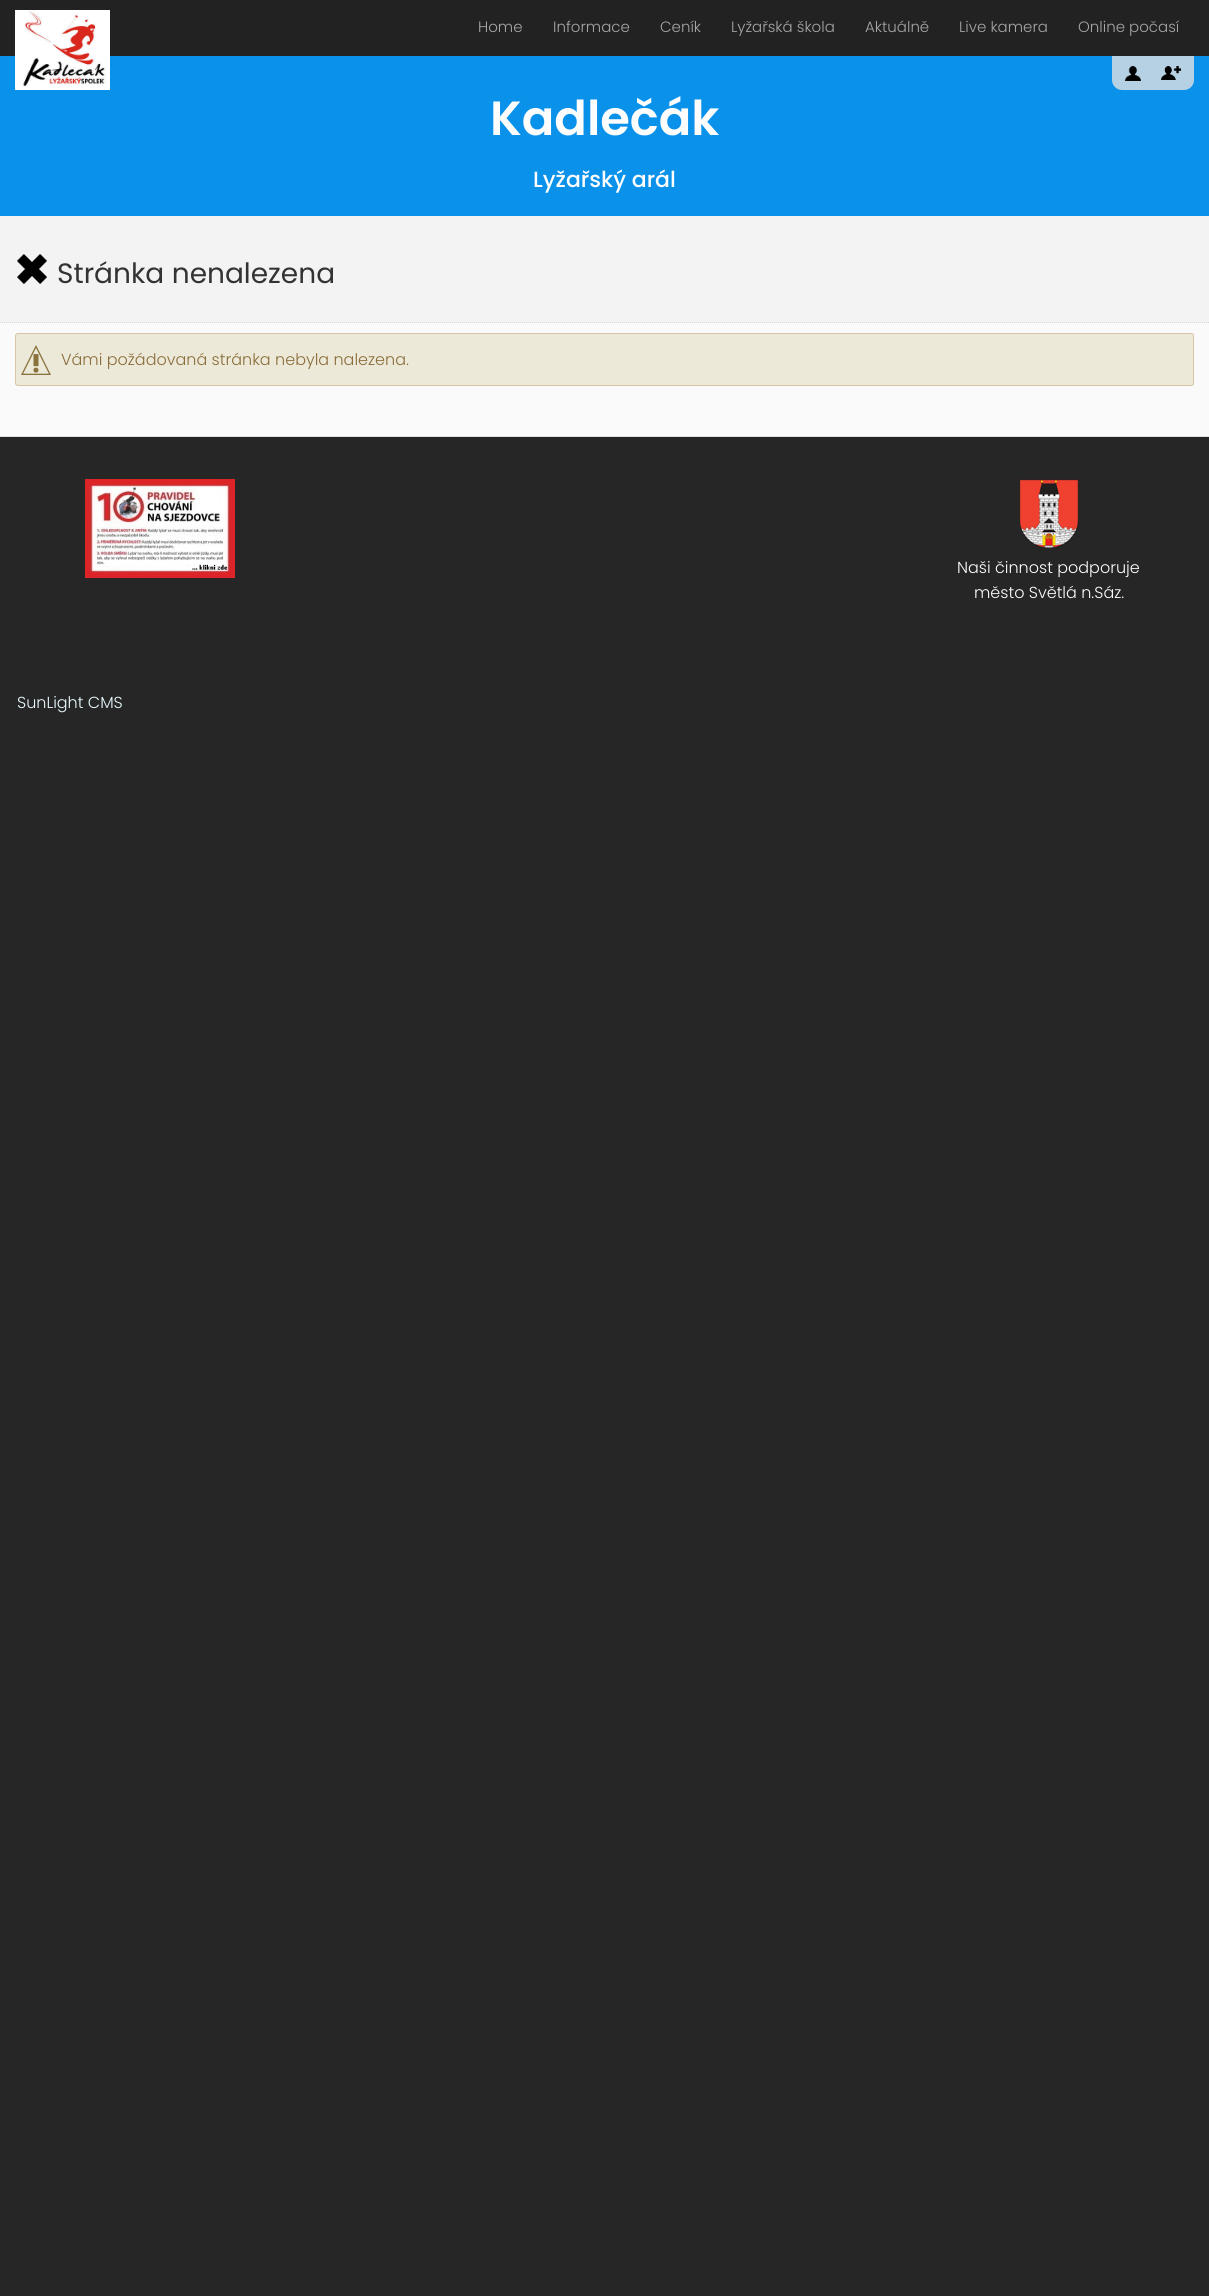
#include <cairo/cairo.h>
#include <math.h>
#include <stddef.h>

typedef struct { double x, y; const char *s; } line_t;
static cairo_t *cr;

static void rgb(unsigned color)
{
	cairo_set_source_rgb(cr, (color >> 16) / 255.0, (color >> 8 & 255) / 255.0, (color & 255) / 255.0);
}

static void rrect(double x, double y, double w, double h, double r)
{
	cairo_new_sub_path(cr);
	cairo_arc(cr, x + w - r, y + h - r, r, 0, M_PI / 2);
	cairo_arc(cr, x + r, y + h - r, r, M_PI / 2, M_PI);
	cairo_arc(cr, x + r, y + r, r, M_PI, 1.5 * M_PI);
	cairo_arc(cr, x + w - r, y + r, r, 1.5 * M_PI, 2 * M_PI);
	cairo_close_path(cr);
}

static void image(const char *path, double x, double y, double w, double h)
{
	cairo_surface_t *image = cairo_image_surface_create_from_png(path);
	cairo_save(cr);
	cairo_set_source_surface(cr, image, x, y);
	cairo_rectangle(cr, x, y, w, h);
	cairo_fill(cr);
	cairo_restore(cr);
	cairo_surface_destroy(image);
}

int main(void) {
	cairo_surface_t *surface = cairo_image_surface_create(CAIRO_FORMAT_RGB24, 1209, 2296);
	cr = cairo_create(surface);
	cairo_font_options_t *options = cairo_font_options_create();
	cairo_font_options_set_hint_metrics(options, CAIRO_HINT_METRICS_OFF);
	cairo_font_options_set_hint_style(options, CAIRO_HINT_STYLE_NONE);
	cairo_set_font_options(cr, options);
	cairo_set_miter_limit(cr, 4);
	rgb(0xfafafa);
	cairo_paint(cr);
	rgb(0x222222);
	cairo_rectangle(cr, 0, 0, 1209, 56);
	cairo_fill(cr);
	rgb(0x0a92eb);
	cairo_rectangle(cr, 0, 56, 1209, 160);
	cairo_fill(cr);
	image("img/1.png", 15, 10, 95, 80);
	rgb(0xb6d1e3);
	cairo_new_path(cr);
	cairo_move_to(cr, 1112, 56);
	cairo_line_to(cr, 1194, 56);
	cairo_line_to(cr, 1194, 80);
	cairo_curve_to(cr, 1194, 85.5, 1189.5, 90, 1184, 90);
	cairo_line_to(cr, 1122, 90);
	cairo_curve_to(cr, 1116.5, 90, 1112, 85.5, 1112, 80);
	cairo_close_path(cr);
	cairo_fill(cr);
	image("img/2.png", 1125, 66, 16, 15);
	image("img/3.png", 1161, 66, 20, 14);
	rgb(0xf3f3f3);
	cairo_rectangle(cr, 0, 216, 1209, 107);
	cairo_fill(cr);
	cairo_new_path(cr);
	cairo_move_to(cr, 0, 322.5);
	cairo_line_to(cr, 1209, 322.5);
	rgb(0xd9d9d9);
	cairo_set_line_width(cr, 1);
	cairo_set_dash(cr, (double[]){1, 1}, 2, 0);
	cairo_stroke(cr);
	image("img/4.png", 17, 254, 30, 30);
	rgb(0xece9d8);
	rrect(15, 333, 1179, 53, 3);
	cairo_fill(cr);
	image("img/5.png", 21, 345, 30, 30);
	rrect(15.5, 333.5, 1178, 52, 2.5);
	rgb(0xd8c5a5);
	cairo_set_dash(cr, NULL, 0, 0);
	cairo_stroke(cr);
	rgb(0xe1e1e1);
	cairo_rectangle(cr, 0, 436, 1209, 1);
	cairo_fill(cr);
	rgb(0x262626);
	cairo_rectangle(cr, 0, 437, 1209, 1859);
	cairo_fill(cr);
	image("img/6.png", 85, 479, 150, 99);
	image("img/7.png", 1019, 479, 60, 69);
	cairo_select_font_face(cr, "Poppins Light", CAIRO_FONT_SLANT_NORMAL, CAIRO_FONT_WEIGHT_NORMAL);
	cairo_set_font_size(cr, 15);
	rgb(0xa6a6a6);
	{
		static const line_t items[] = {
			{478, 32, "Home"},
			{553, 32, "Informace"},
			{660, 32, "Ceník"},
			{731, 32, "Lyžařská škola"},
			{865, 32, "Aktuálně"},
			{959, 32, "Live kamera"},
			{1078, 32, "Online počasí"},
		};
		for (size_t i = 0; i < sizeof items / sizeof *items; i++) {
			cairo_move_to(cr, items[i].x, items[i].y);
			cairo_show_text(cr, items[i].s);
		}
	}
	cairo_select_font_face(cr, "Poppins SemiBold", CAIRO_FONT_SLANT_NORMAL, CAIRO_FONT_WEIGHT_NORMAL);
	cairo_set_font_size(cr, 48);
	rgb(0xfdfdfd);
	cairo_move_to(cr, 490, 135);
	cairo_show_text(cr, "Kadlečák");
	cairo_select_font_face(cr, "Poppins Medium", CAIRO_FONT_SLANT_NORMAL, CAIRO_FONT_WEIGHT_NORMAL);
	cairo_set_font_size(cr, 22);
	cairo_move_to(cr, 533, 187);
	cairo_show_text(cr, "Lyžařský arál");
	cairo_select_font_face(cr, "Poppins", CAIRO_FONT_SLANT_NORMAL, CAIRO_FONT_WEIGHT_NORMAL);
	cairo_set_font_size(cr, 28);
	rgb(0x333333);
	cairo_move_to(cr, 57, 283);
	cairo_show_text(cr, "Stránka nenalezena");
	cairo_select_font_face(cr, "Poppins Light", CAIRO_FONT_SLANT_NORMAL, CAIRO_FONT_WEIGHT_NORMAL);
	cairo_set_font_size(cr, 16);
	rgb(0x8a6d3b);
	cairo_move_to(cr, 61, 365);
	cairo_show_text(cr, "Vámi požádovaná stránka nebyla nalezena.");
	rgb(0xfdfdfd);
	cairo_move_to(cr, 957, 573);
	cairo_show_text(cr, "Naši činnost podporuje");
	cairo_move_to(cr, 974, 598);
	cairo_show_text(cr, "město Světlá n.Sáz.");
	rgb(0xe9faff);
	cairo_move_to(cr, 17, 708);
	cairo_show_text(cr, "SunLight CMS");
	cairo_surface_write_to_png(surface, "page.png");
	cairo_font_options_destroy(options);
	cairo_destroy(cr);
	cairo_surface_destroy(surface);
	return 0;
}
